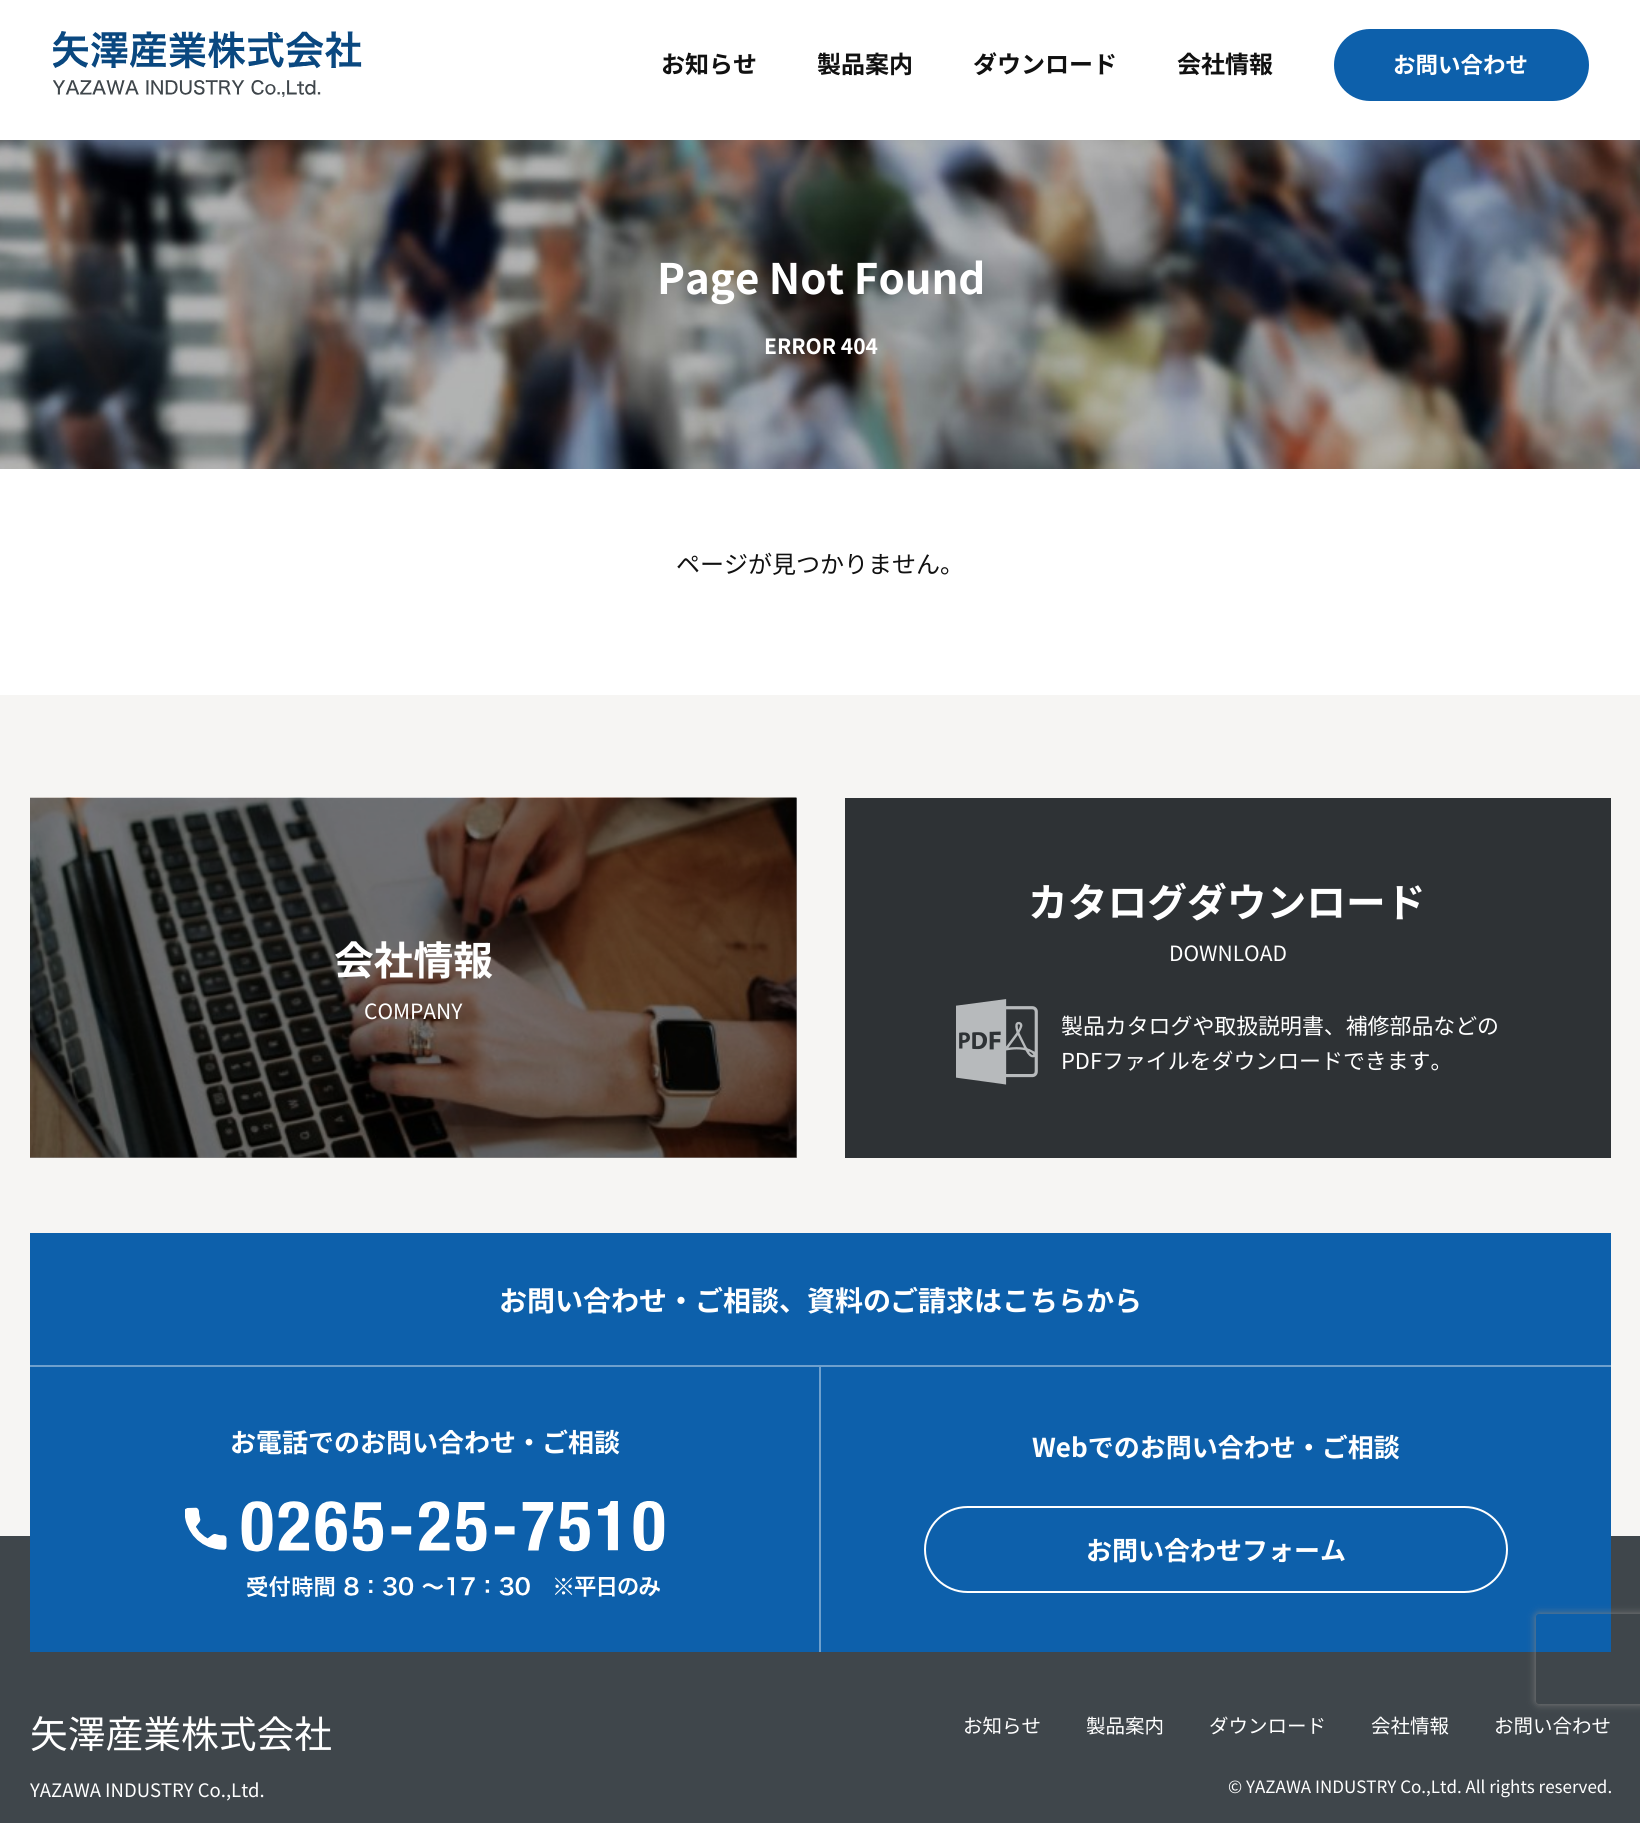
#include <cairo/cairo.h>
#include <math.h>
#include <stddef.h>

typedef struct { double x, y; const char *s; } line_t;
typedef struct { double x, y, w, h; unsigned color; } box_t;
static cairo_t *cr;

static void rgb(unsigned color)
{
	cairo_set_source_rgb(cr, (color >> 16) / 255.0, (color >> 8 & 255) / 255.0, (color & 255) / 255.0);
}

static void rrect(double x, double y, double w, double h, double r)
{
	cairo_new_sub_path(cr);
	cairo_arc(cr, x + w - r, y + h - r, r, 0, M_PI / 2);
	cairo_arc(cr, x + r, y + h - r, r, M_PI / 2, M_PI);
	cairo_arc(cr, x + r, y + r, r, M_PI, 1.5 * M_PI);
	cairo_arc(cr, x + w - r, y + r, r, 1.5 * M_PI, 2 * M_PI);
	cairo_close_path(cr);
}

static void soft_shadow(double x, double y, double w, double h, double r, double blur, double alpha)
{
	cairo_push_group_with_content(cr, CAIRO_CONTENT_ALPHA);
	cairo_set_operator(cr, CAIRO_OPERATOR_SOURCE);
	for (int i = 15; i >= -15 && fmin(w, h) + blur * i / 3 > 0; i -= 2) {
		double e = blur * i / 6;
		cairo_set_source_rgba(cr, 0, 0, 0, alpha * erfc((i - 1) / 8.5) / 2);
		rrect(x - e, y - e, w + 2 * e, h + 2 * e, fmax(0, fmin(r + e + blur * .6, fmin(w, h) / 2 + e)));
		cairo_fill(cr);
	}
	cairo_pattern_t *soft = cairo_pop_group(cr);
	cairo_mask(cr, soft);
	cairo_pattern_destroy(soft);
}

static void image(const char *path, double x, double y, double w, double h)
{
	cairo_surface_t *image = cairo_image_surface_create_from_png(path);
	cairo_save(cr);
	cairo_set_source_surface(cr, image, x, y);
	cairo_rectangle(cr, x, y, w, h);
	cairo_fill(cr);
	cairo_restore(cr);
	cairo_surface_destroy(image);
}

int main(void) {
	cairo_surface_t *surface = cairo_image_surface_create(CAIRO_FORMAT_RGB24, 1640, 1823);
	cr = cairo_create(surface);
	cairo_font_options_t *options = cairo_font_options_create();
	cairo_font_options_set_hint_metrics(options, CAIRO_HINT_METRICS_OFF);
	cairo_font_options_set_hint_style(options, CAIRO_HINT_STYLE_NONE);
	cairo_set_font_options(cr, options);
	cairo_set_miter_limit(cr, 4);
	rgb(0xffffff);
	cairo_paint(cr);
	image("img/1.png", 53, 31, 309, 66);
	rgb(0x0d60ab);
	rrect(1334, 29, 255, 72, 36);
	cairo_fill(cr);
	image("img/2.png", 0, 140, 1640, 329);
	{
		static const box_t items[] = {
			{0, 1536, 1640, 287, 0x3f464b},
			{0, 695, 1640, 841, 0xf6f5f3},
			{30, 798, 767, 360, 0x949392},
		};
		for (size_t i = 0; i < sizeof items / sizeof *items; i++) {
			rgb(items[i].color);
			cairo_rectangle(cr, items[i].x, items[i].y, items[i].w, items[i].h);
			cairo_fill(cr);
		}
	}
	image("img/3.png", 30, 797, 767, 361);
	rgb(0x2e3235);
	cairo_rectangle(cr, 845, 798, 766, 360);
	cairo_fill(cr);
	image("img/4.png", 956, 999, 82, 86);
	{
		static const box_t items[] = {
			{30, 1233, 1581, 419, 0x0d60ab},
			{30, 1365, 1581, 2, 0x6ea0cd},
			{819, 1367, 2, 285, 0x6ea0cd},
		};
		for (size_t i = 0; i < sizeof items / sizeof *items; i++) {
			rgb(items[i].color);
			cairo_rectangle(cr, items[i].x, items[i].y, items[i].w, items[i].h);
			cairo_fill(cr);
		}
	}
	image("img/5.png", 185, 1501, 480, 96);
	rrect(925, 1507, 582, 85, 42.5);
	rgb(0xffffff);
	cairo_stroke(cr);
	cairo_save(cr);
	cairo_set_fill_rule(cr, CAIRO_FILL_RULE_EVEN_ODD);
	cairo_new_path(cr);
	cairo_move_to(cr, 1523, 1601);
	cairo_line_to(cr, 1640, 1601);
	cairo_line_to(cr, 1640, 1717);
	cairo_line_to(cr, 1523, 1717);
	cairo_close_path(cr);
	cairo_move_to(cr, 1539, 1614);
	cairo_line_to(cr, 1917, 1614);
	cairo_curve_to(cr, 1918.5, 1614, 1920, 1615.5, 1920, 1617);
	cairo_line_to(cr, 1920, 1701);
	cairo_curve_to(cr, 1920, 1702.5, 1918.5, 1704, 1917, 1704);
	cairo_line_to(cr, 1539, 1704);
	cairo_curve_to(cr, 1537.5, 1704, 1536, 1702.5, 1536, 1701);
	cairo_line_to(cr, 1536, 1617);
	cairo_curve_to(cr, 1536, 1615.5, 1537.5, 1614, 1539, 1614);
	cairo_close_path(cr);
	cairo_clip(cr);
	rgb(0x808080);
	soft_shadow(1536, 1614, 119, 90, 3, 4, 1);
	cairo_restore(cr);
	cairo_select_font_face(cr, "Noto Sans JP", CAIRO_FONT_SLANT_NORMAL, CAIRO_FONT_WEIGHT_BOLD);
	cairo_set_font_size(cr, 24);
	rgb(0x111111);
	{
		static const line_t items[] = {
			{661, 73, "お知らせ"},
			{817, 73, "製品案内"},
			{973, 73, "ダウンロード"},
			{1177, 73, "会社情報"},
		};
		for (size_t i = 0; i < sizeof items / sizeof *items; i++) {
			cairo_move_to(cr, items[i].x, items[i].y);
			cairo_show_text(cr, items[i].s);
		}
	}
	cairo_set_font_size(cr, 22.5);
	rgb(0xffffff);
	cairo_move_to(cr, 1393, 73);
	cairo_show_text(cr, "お問い合わせ");
	cairo_set_font_size(cr, 42);
	cairo_move_to(cr, 657, 294);
	cairo_show_text(cr, "Page Not Found");
	cairo_set_font_size(cr, 21);
	cairo_move_to(cr, 764, 354);
	cairo_show_text(cr, "ERROR 404");
	cairo_select_font_face(cr, "Noto Sans JP", CAIRO_FONT_SLANT_NORMAL, CAIRO_FONT_WEIGHT_NORMAL);
	cairo_set_font_size(cr, 24);
	rgb(0x111111);
	cairo_move_to(cr, 676, 573);
	cairo_show_text(cr, "ページが見つかりません。");
	cairo_select_font_face(cr, "Noto Sans JP", CAIRO_FONT_SLANT_NORMAL, CAIRO_FONT_WEIGHT_BOLD);
	cairo_set_font_size(cr, 39.75);
	rgb(0xffffff);
	cairo_move_to(cr, 334, 975);
	cairo_show_text(cr, "会社情報");
	cairo_select_font_face(cr, "Noto Sans JP", CAIRO_FONT_SLANT_NORMAL, CAIRO_FONT_WEIGHT_NORMAL);
	cairo_set_font_size(cr, 21);
	cairo_move_to(cr, 364, 1019);
	cairo_show_text(cr, "COMPANY");
	cairo_select_font_face(cr, "Noto Sans JP", CAIRO_FONT_SLANT_NORMAL, CAIRO_FONT_WEIGHT_BOLD);
	cairo_set_font_size(cr, 39.75);
	cairo_move_to(cr, 1028, 917);
	cairo_show_text(cr, "カタログダウンロード");
	cairo_select_font_face(cr, "Noto Sans JP", CAIRO_FONT_SLANT_NORMAL, CAIRO_FONT_WEIGHT_NORMAL);
	cairo_set_font_size(cr, 21);
	cairo_move_to(cr, 1169, 961);
	cairo_show_text(cr, "DOWNLOAD");
	cairo_set_font_size(cr, 21.9);
	cairo_move_to(cr, 1061, 1034);
	cairo_show_text(cr, "製品カタログや取扱説明書、補修部品などの");
	cairo_move_to(cr, 1061, 1069);
	cairo_show_text(cr, "PDFファイルをダウンロードできます。");
	cairo_select_font_face(cr, "Noto Sans JP", CAIRO_FONT_SLANT_NORMAL, CAIRO_FONT_WEIGHT_BOLD);
	cairo_set_font_size(cr, 28);
	cairo_move_to(cr, 499, 1311);
	cairo_show_text(cr, "お問い合わせ・ご相談、資料の");
	cairo_move_to(cr, 890, 1311);
	cairo_show_text(cr, "ご請求はこちらから");
	cairo_set_font_size(cr, 26);
	{
		static const line_t items[] = {
			{230, 1452, "お電話でのお問い合わせ・ご相談"},
			{1032, 1457, "Webでのお問い合わせ・ご相談"},
			{1086, 1560, "お問い合わせフォーム"},
		};
		for (size_t i = 0; i < sizeof items / sizeof *items; i++) {
			cairo_move_to(cr, items[i].x, items[i].y);
			cairo_show_text(cr, items[i].s);
		}
	}
	cairo_select_font_face(cr, "Noto Sans JP", CAIRO_FONT_SLANT_NORMAL, CAIRO_FONT_WEIGHT_NORMAL);
	cairo_set_font_size(cr, 37.75);
	cairo_move_to(cr, 30, 1748);
	cairo_show_text(cr, "矢澤産業株式会社");
	cairo_set_font_size(cr, 18.5);
	cairo_move_to(cr, 30, 1797);
	cairo_show_text(cr, "YAZAWA INDUSTRY Co.,Ltd.");
	cairo_set_font_size(cr, 19.5);
	{
		static const line_t items[] = {
			{963, 1733, "お知らせ"},
			{1086, 1733, "製品案内"},
			{1209, 1733, "ダウンロード"},
			{1371, 1733, "会社情報"},
			{1494, 1733, "お問い合わせ"},
		};
		for (size_t i = 0; i < sizeof items / sizeof *items; i++) {
			cairo_move_to(cr, items[i].x, items[i].y);
			cairo_show_text(cr, items[i].s);
		}
	}
	cairo_set_font_size(cr, 17);
	cairo_move_to(cr, 1228, 1793);
	cairo_show_text(cr, "© YAZAWA INDUSTRY Co.,Ltd. All rights reserved.");
	cairo_surface_write_to_png(surface, "page.png");
	cairo_font_options_destroy(options);
	cairo_destroy(cr);
	cairo_surface_destroy(surface);
	return 0;
}
